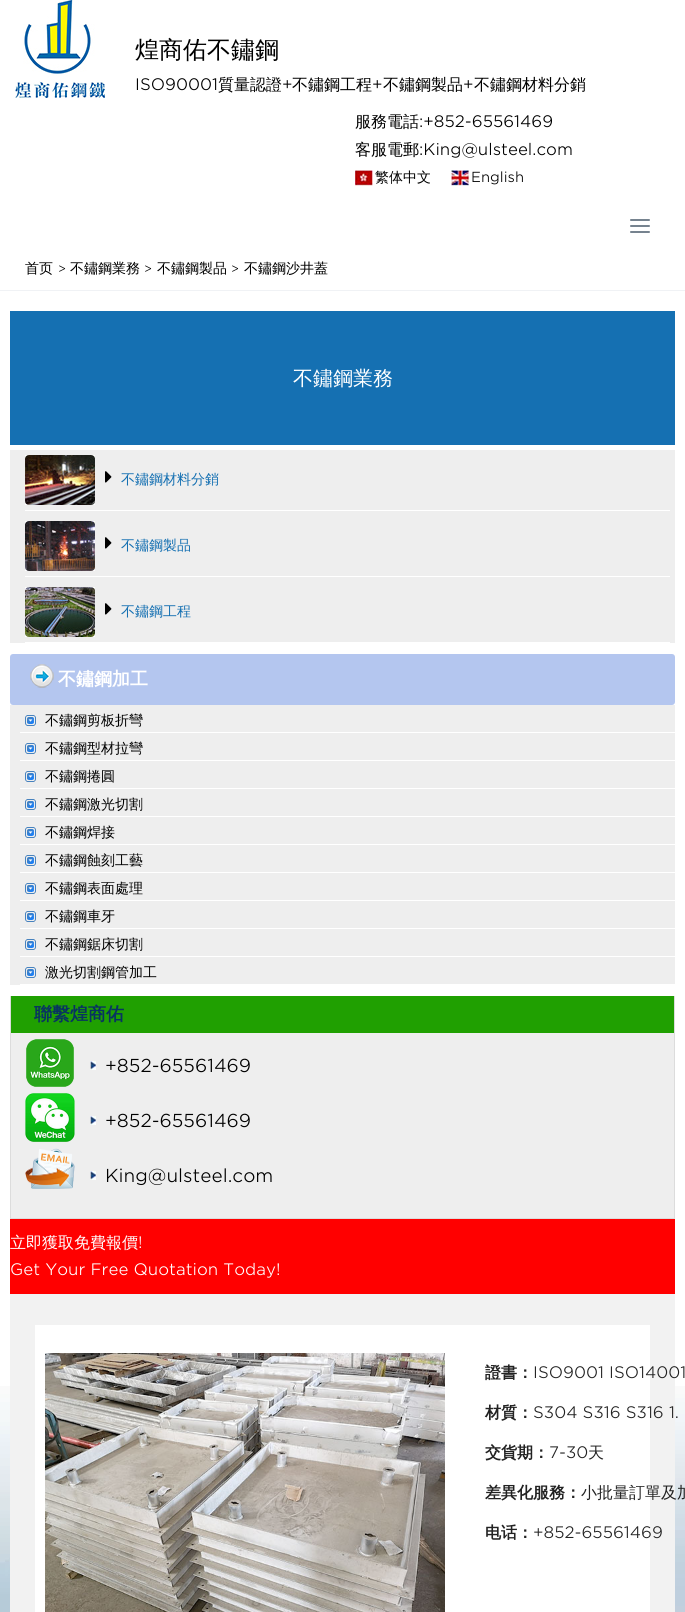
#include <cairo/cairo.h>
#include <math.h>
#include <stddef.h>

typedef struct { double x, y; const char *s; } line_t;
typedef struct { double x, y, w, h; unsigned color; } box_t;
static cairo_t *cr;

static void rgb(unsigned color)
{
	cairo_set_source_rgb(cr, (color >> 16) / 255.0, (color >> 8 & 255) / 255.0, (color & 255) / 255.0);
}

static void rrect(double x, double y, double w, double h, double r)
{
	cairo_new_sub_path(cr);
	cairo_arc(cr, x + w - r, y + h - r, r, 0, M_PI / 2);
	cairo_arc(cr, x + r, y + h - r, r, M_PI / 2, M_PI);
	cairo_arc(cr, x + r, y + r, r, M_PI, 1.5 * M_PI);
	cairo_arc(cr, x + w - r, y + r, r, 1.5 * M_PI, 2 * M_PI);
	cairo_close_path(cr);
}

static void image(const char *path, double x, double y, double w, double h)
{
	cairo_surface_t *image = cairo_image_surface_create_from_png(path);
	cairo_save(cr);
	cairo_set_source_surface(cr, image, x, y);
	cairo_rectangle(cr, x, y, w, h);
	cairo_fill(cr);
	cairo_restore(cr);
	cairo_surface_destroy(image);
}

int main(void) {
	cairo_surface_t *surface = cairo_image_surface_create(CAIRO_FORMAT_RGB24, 685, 1612);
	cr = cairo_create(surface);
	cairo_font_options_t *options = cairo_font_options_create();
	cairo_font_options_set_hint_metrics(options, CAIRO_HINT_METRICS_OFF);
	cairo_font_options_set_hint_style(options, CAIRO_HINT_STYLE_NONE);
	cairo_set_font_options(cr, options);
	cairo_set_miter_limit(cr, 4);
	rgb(0xffffff);
	cairo_paint(cr);
	image("img/1.png", 0, 1386, 685, 226);
	image("img/2.png", 15, 0, 90, 98);
	image("img/3.png", 355, 170, 18, 16);
	image("img/4.png", 451, 170, 18, 16);
	rgb(0x76838f);
	rrect(630, 219, 20, 2, 1);
	cairo_fill(cr);
	rrect(630, 225, 20, 2, 1);
	cairo_fill(cr);
	rrect(630, 231, 20, 2, 1);
	cairo_fill(cr);
	{
		static const box_t items[] = {
			{0, 290, 685, 1, 0xf0f2f5},
			{10, 311, 665, 134, 0x1570b2},
			{10, 450, 665, 193, 0xeeeeee},
			{25, 510, 645, 1, 0xffffff},
		};
		for (size_t i = 0; i < sizeof items / sizeof *items; i++) {
			rgb(items[i].color);
			cairo_rectangle(cr, items[i].x, items[i].y, items[i].w, items[i].h);
			cairo_fill(cr);
		}
	}
	image("img/5.png", 25, 455, 70, 50);
	image("img/6.png", 105, 471, 7, 12);
	cairo_rectangle(cr, 25, 576, 645, 1);
	cairo_fill(cr);
	image("img/7.png", 25, 521, 70, 50);
	image("img/6.png", 105, 537, 7, 12);
	cairo_rectangle(cr, 25, 642, 645, 1);
	cairo_fill(cr);
	image("img/8.png", 25, 587, 70, 50);
	image("img/6.png", 105, 603, 7, 12);
	rgb(0xb4c6ef);
	rrect(10, 654, 665, 51, 3);
	cairo_fill(cr);
	image("img/9.png", 30, 664, 24, 24);
	rgb(0xeeeeee);
	cairo_rectangle(cr, 10, 705, 665, 280);
	cairo_fill(cr);
	image("img/10.png", 25, 715, 11, 11);
	rgb(0xffffff);
	cairo_rectangle(cr, 20, 732, 655, 1);
	cairo_fill(cr);
	image("img/10.png", 25, 743, 11, 11);
	cairo_rectangle(cr, 20, 760, 655, 1);
	cairo_fill(cr);
	image("img/10.png", 25, 771, 11, 11);
	cairo_rectangle(cr, 20, 788, 655, 1);
	cairo_fill(cr);
	image("img/10.png", 25, 799, 11, 11);
	cairo_rectangle(cr, 20, 816, 655, 1);
	cairo_fill(cr);
	image("img/10.png", 25, 827, 11, 11);
	cairo_rectangle(cr, 20, 844, 655, 1);
	cairo_fill(cr);
	image("img/10.png", 25, 855, 11, 11);
	cairo_rectangle(cr, 20, 872, 655, 1);
	cairo_fill(cr);
	image("img/10.png", 25, 883, 11, 11);
	cairo_rectangle(cr, 20, 900, 655, 1);
	cairo_fill(cr);
	image("img/10.png", 25, 911, 11, 11);
	cairo_rectangle(cr, 20, 928, 655, 1);
	cairo_fill(cr);
	image("img/10.png", 25, 939, 11, 11);
	cairo_rectangle(cr, 20, 956, 655, 1);
	cairo_fill(cr);
	image("img/10.png", 25, 967, 11, 11);
	{
		static const box_t items[] = {
			{20, 984, 655, 1, 0xffffff},
			{11, 1033, 663, 185, 0xeeeeee},
			{674, 996, 1, 223, 0xdcdcdc},
			{10, 1218, 665, 1, 0xdcdcdc},
			{10, 996, 1, 223, 0xdcdcdc},
			{11, 996, 663, 37, 0x20a001},
		};
		for (size_t i = 0; i < sizeof items / sizeof *items; i++) {
			rgb(items[i].color);
			cairo_rectangle(cr, items[i].x, items[i].y, items[i].w, items[i].h);
			cairo_fill(cr);
		}
	}
	image("img/11.png", 26, 1039, 48, 48);
	image("img/12.png", 90, 1061, 6, 9);
	image("img/13.png", 25, 1093, 50, 49);
	image("img/12.png", 90, 1116, 6, 9);
	image("img/14.png", 25, 1148, 50, 41);
	image("img/12.png", 90, 1171, 6, 9);
	{
		static const box_t items[] = {
			{10, 1219, 665, 75, 0xff0000},
			{10, 1295, 665, 317, 0xf2f2f2},
			{10, 1294, 665, 1, 0xf0f2f5},
			{35, 1325, 615, 287, 0xffffff},
		};
		for (size_t i = 0; i < sizeof items / sizeof *items; i++) {
			rgb(items[i].color);
			cairo_rectangle(cr, items[i].x, items[i].y, items[i].w, items[i].h);
			cairo_fill(cr);
		}
	}
	image("img/15.png", 45, 1353, 400, 259);
	cairo_select_font_face(cr, "WenQuanYi Zen Hei Medium", CAIRO_FONT_SLANT_NORMAL, CAIRO_FONT_WEIGHT_NORMAL);
	cairo_set_font_size(cr, 24);
	rgb(0x000000);
	cairo_move_to(cr, 135, 58);
	cairo_show_text(cr, "煌商佑不鏽鋼");
	cairo_select_font_face(cr, "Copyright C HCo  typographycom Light", CAIRO_FONT_SLANT_NORMAL, CAIRO_FONT_WEIGHT_NORMAL);
	cairo_set_font_size(cr, 16);
	cairo_move_to(cr, 135, 90);
	cairo_show_text(cr, "ISO90001");
	cairo_select_font_face(cr, "WenQuanYi Zen Hei Medium", CAIRO_FONT_SLANT_NORMAL, CAIRO_FONT_WEIGHT_NORMAL);
	cairo_move_to(cr, 218, 90);
	cairo_show_text(cr, "質量認證");
	cairo_select_font_face(cr, "Copyright C HCo  typographycom Light", CAIRO_FONT_SLANT_NORMAL, CAIRO_FONT_WEIGHT_NORMAL);
	cairo_move_to(cr, 282, 90);
	cairo_show_text(cr, "+");
	cairo_select_font_face(cr, "WenQuanYi Zen Hei Medium", CAIRO_FONT_SLANT_NORMAL, CAIRO_FONT_WEIGHT_NORMAL);
	cairo_move_to(cr, 292, 90);
	cairo_show_text(cr, "不鏽鋼工程");
	cairo_select_font_face(cr, "Copyright C HCo  typographycom Light", CAIRO_FONT_SLANT_NORMAL, CAIRO_FONT_WEIGHT_NORMAL);
	cairo_move_to(cr, 372, 90);
	cairo_show_text(cr, "+");
	cairo_select_font_face(cr, "WenQuanYi Zen Hei Medium", CAIRO_FONT_SLANT_NORMAL, CAIRO_FONT_WEIGHT_NORMAL);
	cairo_move_to(cr, 383, 90);
	cairo_show_text(cr, "不鏽鋼製品");
	cairo_select_font_face(cr, "Copyright C HCo  typographycom Light", CAIRO_FONT_SLANT_NORMAL, CAIRO_FONT_WEIGHT_NORMAL);
	cairo_move_to(cr, 463, 90);
	cairo_show_text(cr, "+");
	cairo_select_font_face(cr, "WenQuanYi Zen Hei Medium", CAIRO_FONT_SLANT_NORMAL, CAIRO_FONT_WEIGHT_NORMAL);
	cairo_move_to(cr, 474, 90);
	cairo_show_text(cr, "不鏽鋼材料分銷");
	cairo_move_to(cr, 355, 127);
	cairo_show_text(cr, "服務電話");
	cairo_select_font_face(cr, "Copyright C HCo  typographycom Light", CAIRO_FONT_SLANT_NORMAL, CAIRO_FONT_WEIGHT_NORMAL);
	cairo_move_to(cr, 419, 127);
	cairo_show_text(cr, ":+852-65561469");
	cairo_select_font_face(cr, "WenQuanYi Zen Hei Medium", CAIRO_FONT_SLANT_NORMAL, CAIRO_FONT_WEIGHT_NORMAL);
	cairo_move_to(cr, 355, 155);
	cairo_show_text(cr, "客服電郵");
	cairo_select_font_face(cr, "Copyright C HCo  typographycom Light", CAIRO_FONT_SLANT_NORMAL, CAIRO_FONT_WEIGHT_NORMAL);
	cairo_move_to(cr, 419, 155);
	cairo_show_text(cr, ":King@ulsteel.com");
	cairo_select_font_face(cr, "WenQuanYi Zen Hei Medium", CAIRO_FONT_SLANT_NORMAL, CAIRO_FONT_WEIGHT_NORMAL);
	cairo_set_font_size(cr, 14);
	cairo_move_to(cr, 375, 182);
	cairo_show_text(cr, "繁体中文");
	cairo_select_font_face(cr, "Copyright C HCo  typographycom Light", CAIRO_FONT_SLANT_NORMAL, CAIRO_FONT_WEIGHT_NORMAL);
	cairo_move_to(cr, 471, 182);
	cairo_show_text(cr, "English");
	cairo_select_font_face(cr, "WenQuanYi Zen Hei Medium", CAIRO_FONT_SLANT_NORMAL, CAIRO_FONT_WEIGHT_NORMAL);
	cairo_move_to(cr, 25, 273);
	cairo_show_text(cr, "首页");
	cairo_select_font_face(cr, "Copyright C HCo  typographycom Light", CAIRO_FONT_SLANT_NORMAL, CAIRO_FONT_WEIGHT_NORMAL);
	cairo_set_font_size(cr, 12);
	cairo_move_to(cr, 58, 273);
	cairo_show_text(cr, ">");
	cairo_select_font_face(cr, "WenQuanYi Zen Hei Medium", CAIRO_FONT_SLANT_NORMAL, CAIRO_FONT_WEIGHT_NORMAL);
	cairo_set_font_size(cr, 14);
	cairo_move_to(cr, 70, 273);
	cairo_show_text(cr, "不鏽鋼業務");
	cairo_select_font_face(cr, "Copyright C HCo  typographycom Light", CAIRO_FONT_SLANT_NORMAL, CAIRO_FONT_WEIGHT_NORMAL);
	cairo_set_font_size(cr, 12);
	cairo_move_to(cr, 144, 273);
	cairo_show_text(cr, ">");
	cairo_select_font_face(cr, "WenQuanYi Zen Hei Medium", CAIRO_FONT_SLANT_NORMAL, CAIRO_FONT_WEIGHT_NORMAL);
	cairo_set_font_size(cr, 14);
	cairo_move_to(cr, 157, 273);
	cairo_show_text(cr, "不鏽鋼製品");
	cairo_select_font_face(cr, "Copyright C HCo  typographycom Light", CAIRO_FONT_SLANT_NORMAL, CAIRO_FONT_WEIGHT_NORMAL);
	cairo_set_font_size(cr, 12);
	cairo_move_to(cr, 231, 273);
	cairo_show_text(cr, ">");
	cairo_select_font_face(cr, "WenQuanYi Zen Hei Medium", CAIRO_FONT_SLANT_NORMAL, CAIRO_FONT_WEIGHT_NORMAL);
	cairo_set_font_size(cr, 14);
	cairo_move_to(cr, 244, 273);
	cairo_show_text(cr, "不鏽鋼沙井蓋");
	cairo_set_font_size(cr, 20);
	rgb(0xffffff);
	cairo_move_to(cr, 293, 385);
	cairo_show_text(cr, "不鏽鋼業務");
	cairo_set_font_size(cr, 14);
	rgb(0x1570b2);
	{
		static const line_t items[] = {
			{121, 484, "不鏽鋼材料分銷"},
			{121, 550, "不鏽鋼製品"},
			{121, 616, "不鏽鋼工程"},
		};
		for (size_t i = 0; i < sizeof items / sizeof *items; i++) {
			cairo_move_to(cr, items[i].x, items[i].y);
			cairo_show_text(cr, items[i].s);
		}
	}
	cairo_select_font_face(cr, "WenQuanYi Zen Hei", CAIRO_FONT_SLANT_NORMAL, CAIRO_FONT_WEIGHT_BOLD);
	cairo_set_font_size(cr, 18);
	rgb(0xffffff);
	cairo_move_to(cr, 58, 685);
	cairo_show_text(cr, "不鏽鋼加工");
	cairo_select_font_face(cr, "WenQuanYi Zen Hei Medium", CAIRO_FONT_SLANT_NORMAL, CAIRO_FONT_WEIGHT_NORMAL);
	cairo_set_font_size(cr, 14);
	rgb(0x000000);
	{
		static const line_t items[] = {
			{45, 725, "不鏽鋼剪板折彎"},
			{45, 753, "不鏽鋼型材拉彎"},
			{45, 781, "不鏽鋼捲圓"},
			{45, 809, "不鏽鋼激光切割"},
			{45, 837, "不鏽鋼焊接"},
			{45, 865, "不鏽鋼蝕刻工藝"},
			{45, 893, "不鏽鋼表面處理"},
			{45, 921, "不鏽鋼車牙"},
			{45, 949, "不鏽鋼鋸床切割"},
			{45, 977, "激光切割鋼管加工"},
		};
		for (size_t i = 0; i < sizeof items / sizeof *items; i++) {
			cairo_move_to(cr, items[i].x, items[i].y);
			cairo_show_text(cr, items[i].s);
		}
	}
	cairo_select_font_face(cr, "WenQuanYi Zen Hei", CAIRO_FONT_SLANT_NORMAL, CAIRO_FONT_WEIGHT_BOLD);
	cairo_set_font_size(cr, 18);
	rgb(0x083361);
	cairo_move_to(cr, 34, 1020);
	cairo_show_text(cr, "聯繫煌商佑");
	cairo_select_font_face(cr, "Copyright C HCo  typographycom Light", CAIRO_FONT_SLANT_NORMAL, CAIRO_FONT_WEIGHT_NORMAL);
	rgb(0x000000);
	{
		static const line_t items[] = {
			{105, 1072, "+852-65561469"},
			{105, 1127, "+852-65561469"},
			{105, 1182, "King@ulsteel.com"},
		};
		for (size_t i = 0; i < sizeof items / sizeof *items; i++) {
			cairo_move_to(cr, items[i].x, items[i].y);
			cairo_show_text(cr, items[i].s);
		}
	}
	cairo_select_font_face(cr, "WenQuanYi Zen Hei Medium", CAIRO_FONT_SLANT_NORMAL, CAIRO_FONT_WEIGHT_NORMAL);
	cairo_set_font_size(cr, 16);
	rgb(0xffffff);
	cairo_move_to(cr, 10, 1248);
	cairo_show_text(cr, "立即獲取免費報價");
	cairo_select_font_face(cr, "Copyright C HCo  typographycom Light", CAIRO_FONT_SLANT_NORMAL, CAIRO_FONT_WEIGHT_NORMAL);
	cairo_move_to(cr, 138, 1248);
	cairo_show_text(cr, "!");
	cairo_move_to(cr, 10, 1275);
	cairo_show_text(cr, "Get Your Free Quotation Today!");
	cairo_select_font_face(cr, "WenQuanYi Zen Hei", CAIRO_FONT_SLANT_NORMAL, CAIRO_FONT_WEIGHT_BOLD);
	rgb(0x222222);
	cairo_move_to(cr, 485, 1378);
	cairo_show_text(cr, "證書：");
	cairo_select_font_face(cr, "Copyright C HCo  typographycom Light", CAIRO_FONT_SLANT_NORMAL, CAIRO_FONT_WEIGHT_NORMAL);
	cairo_move_to(cr, 533, 1378);
	cairo_show_text(cr, "ISO9001 ISO14001");
	cairo_select_font_face(cr, "WenQuanYi Zen Hei", CAIRO_FONT_SLANT_NORMAL, CAIRO_FONT_WEIGHT_BOLD);
	cairo_move_to(cr, 485, 1418);
	cairo_show_text(cr, "材質：");
	cairo_select_font_face(cr, "Copyright C HCo  typographycom Light", CAIRO_FONT_SLANT_NORMAL, CAIRO_FONT_WEIGHT_NORMAL);
	cairo_move_to(cr, 533, 1418);
	cairo_show_text(cr, "S304 S316 S316 1.");
	cairo_select_font_face(cr, "WenQuanYi Zen Hei", CAIRO_FONT_SLANT_NORMAL, CAIRO_FONT_WEIGHT_BOLD);
	cairo_move_to(cr, 485, 1458);
	cairo_show_text(cr, "交貨期：");
	cairo_select_font_face(cr, "Copyright C HCo  typographycom Light", CAIRO_FONT_SLANT_NORMAL, CAIRO_FONT_WEIGHT_NORMAL);
	cairo_move_to(cr, 549, 1458);
	cairo_show_text(cr, "7-30");
	cairo_select_font_face(cr, "WenQuanYi Zen Hei Medium", CAIRO_FONT_SLANT_NORMAL, CAIRO_FONT_WEIGHT_NORMAL);
	cairo_move_to(cr, 588, 1458);
	cairo_show_text(cr, "天");
	cairo_select_font_face(cr, "WenQuanYi Zen Hei", CAIRO_FONT_SLANT_NORMAL, CAIRO_FONT_WEIGHT_BOLD);
	cairo_move_to(cr, 485, 1498);
	cairo_show_text(cr, "差異化服務：");
	cairo_select_font_face(cr, "WenQuanYi Zen Hei Medium", CAIRO_FONT_SLANT_NORMAL, CAIRO_FONT_WEIGHT_NORMAL);
	cairo_move_to(cr, 581, 1498);
	cairo_show_text(cr, "小批量訂單及加");
	cairo_select_font_face(cr, "WenQuanYi Zen Hei", CAIRO_FONT_SLANT_NORMAL, CAIRO_FONT_WEIGHT_BOLD);
	cairo_move_to(cr, 485, 1538);
	cairo_show_text(cr, "电话：");
	cairo_select_font_face(cr, "Copyright C HCo  typographycom Light", CAIRO_FONT_SLANT_NORMAL, CAIRO_FONT_WEIGHT_NORMAL);
	cairo_move_to(cr, 533, 1538);
	cairo_show_text(cr, "+852-65561469");
	cairo_surface_write_to_png(surface, "page.png");
	cairo_font_options_destroy(options);
	cairo_destroy(cr);
	cairo_surface_destroy(surface);
	return 0;
}
